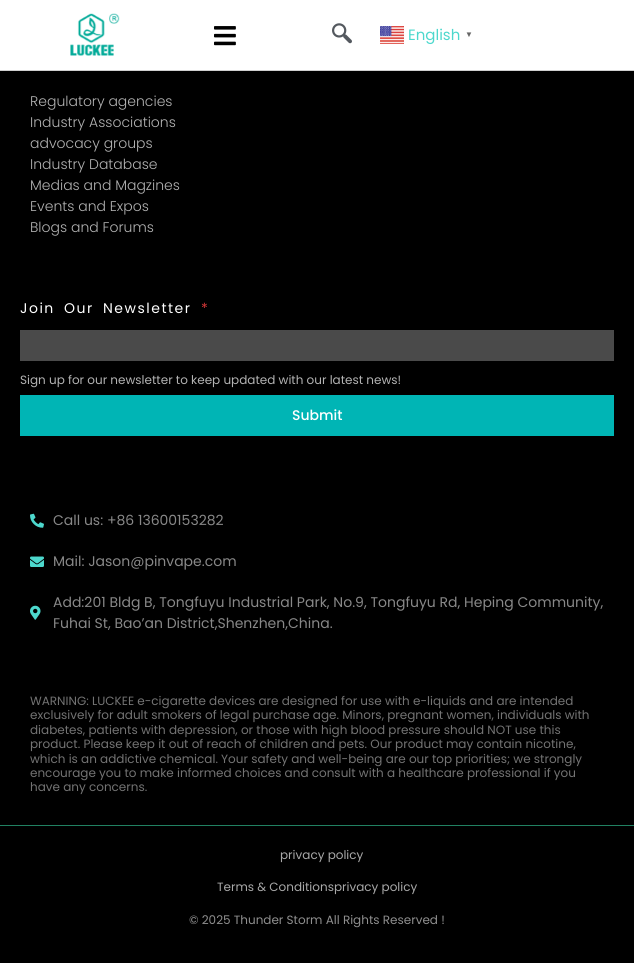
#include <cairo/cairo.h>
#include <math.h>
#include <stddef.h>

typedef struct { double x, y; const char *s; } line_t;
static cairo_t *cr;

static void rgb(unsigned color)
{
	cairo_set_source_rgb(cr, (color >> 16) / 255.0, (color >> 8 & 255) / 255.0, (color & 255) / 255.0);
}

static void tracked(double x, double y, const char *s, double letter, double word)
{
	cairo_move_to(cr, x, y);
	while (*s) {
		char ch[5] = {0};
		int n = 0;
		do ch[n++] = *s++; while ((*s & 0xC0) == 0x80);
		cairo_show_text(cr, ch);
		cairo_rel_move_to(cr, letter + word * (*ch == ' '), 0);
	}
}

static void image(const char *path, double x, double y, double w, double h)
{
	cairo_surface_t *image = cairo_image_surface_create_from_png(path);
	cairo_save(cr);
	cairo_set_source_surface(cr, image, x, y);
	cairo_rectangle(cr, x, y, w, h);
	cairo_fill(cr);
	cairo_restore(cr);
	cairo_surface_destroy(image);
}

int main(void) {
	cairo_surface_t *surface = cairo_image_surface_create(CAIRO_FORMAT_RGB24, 634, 963);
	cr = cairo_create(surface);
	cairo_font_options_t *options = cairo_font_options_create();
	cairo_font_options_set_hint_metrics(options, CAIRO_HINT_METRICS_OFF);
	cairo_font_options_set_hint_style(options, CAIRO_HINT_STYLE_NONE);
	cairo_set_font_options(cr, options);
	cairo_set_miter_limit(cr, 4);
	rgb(0x000000);
	cairo_paint(cr);
	rgb(0xffffff);
	cairo_rectangle(cr, 0, 0, 634, 70);
	cairo_fill(cr);
	rgb(0xcfcfcf);
	cairo_rectangle(cr, 0, 70, 634, 1);
	cairo_fill(cr);
	image("img/1.png", 70, 13, 50, 43);
	image("img/2.png", 214, 26, 22, 20);
	image("img/3.png", 332, 23, 20, 21);
	image("img/4.png", 380, 26, 24, 18);
	rgb(0x4a4a4a);
	cairo_rectangle(cr, 20, 330, 594, 31);
	cairo_fill(cr);
	rgb(0x00b5b5);
	cairo_rectangle(cr, 20, 395, 594, 41);
	cairo_fill(cr);
	image("img/5.png", 30, 513, 14, 15);
	image("img/6.png", 30, 556, 14, 11);
	image("img/7.png", 30, 605, 11, 15);
	rgb(0x218162);
	cairo_rectangle(cr, 0, 825, 634, 1);
	cairo_fill(cr);
	cairo_select_font_face(cr, "Poppins", CAIRO_FONT_SLANT_NORMAL, CAIRO_FONT_WEIGHT_NORMAL);
	cairo_set_font_size(cr, 15);
	rgb(0x4dd8cd);
	cairo_move_to(cr, 408, 40);
	cairo_show_text(cr, "English");
	cairo_select_font_face(cr, "Liberation Sans", CAIRO_FONT_SLANT_NORMAL, CAIRO_FONT_WEIGHT_BOLD);
	cairo_set_font_size(cr, 8);
	rgb(0x666666);
	cairo_move_to(cr, 465, 37);
	cairo_show_text(cr, "▼");
	cairo_select_font_face(cr, "Poppins Light", CAIRO_FONT_SLANT_NORMAL, CAIRO_FONT_WEIGHT_NORMAL);
	cairo_set_font_size(cr, 14);
	rgb(0xb3b3b3);
	{
		static const line_t items[] = {
			{30, 106, "Regulatory agencies"},
			{30, 127, "Industry Associations"},
			{30, 148, "advocacy groups"},
			{30, 169, "Industry Database"},
			{30, 190, "Medias and Magzines"},
			{30, 211, "Events and Expos"},
			{30, 232, "Blogs and Forums"},
		};
		for (size_t i = 0; i < sizeof items / sizeof *items; i++) {
			cairo_move_to(cr, items[i].x, items[i].y);
			cairo_show_text(cr, items[i].s);
		}
	}
	cairo_select_font_face(cr, "Poppins", CAIRO_FONT_SLANT_NORMAL, CAIRO_FONT_WEIGHT_NORMAL);
	rgb(0xffffff);
	tracked(20, 313, "Join Our Newsletter", 1.5, 4);
	rgb(0xd63637);
	cairo_move_to(cr, 201, 313);
	cairo_show_text(cr, "*");
	cairo_set_font_size(cr, 12);
	rgb(0xb3b3b3);
	cairo_move_to(cr, 20, 384);
	cairo_show_text(cr, "Sign up for our newsletter to keep updated with our latest news!");
	cairo_select_font_face(cr, "Poppins Medium", CAIRO_FONT_SLANT_NORMAL, CAIRO_FONT_WEIGHT_NORMAL);
	cairo_set_font_size(cr, 14);
	rgb(0xffffff);
	cairo_move_to(cr, 292, 420);
	cairo_show_text(cr, "Submit");
	cairo_select_font_face(cr, "Poppins", CAIRO_FONT_SLANT_NORMAL, CAIRO_FONT_WEIGHT_NORMAL);
	rgb(0x888888);
	{
		static const line_t items[] = {
			{53, 525, "Call us: +86 13600153282"},
			{53, 566, "Mail: Jason@pinvape.com"},
			{53, 607, "Add:201 Bldg B, Tongfuyu Industrial Park, No.9, Tongfuyu Rd, Heping Community,"},
			{53, 628, "Fuhai St, Bao’an District,Shenzhen,China."},
		};
		for (size_t i = 0; i < sizeof items / sizeof *items; i++) {
			cairo_move_to(cr, items[i].x, items[i].y);
			cairo_show_text(cr, items[i].s);
		}
	}
	cairo_set_font_size(cr, 12);
	rgb(0x737373);
	{
		static const line_t items[] = {
			{30, 705, "WARNING: LUCKEE e-cigarette devices are designed for use with e-liquids and are intended"},
			{30, 719, "exclusively for adult smokers of legal purchase age. Minors, pregnant women, individuals with"},
			{30, 734, "diabetes, patients with depression, or those with high blood pressure should NOT use this"},
			{30, 748, "product. Please keep it out of reach of children and pets. Our product may contain nicotine,"},
			{30, 763, "which is an addictive chemical. Your safety and well-being are our top priorities; we strongly"},
			{30, 777, "encourage you to make informed choices and consult with a healthcare professional if you"},
			{30, 791, "have any concerns."},
		};
		for (size_t i = 0; i < sizeof items / sizeof *items; i++) {
			cairo_move_to(cr, items[i].x, items[i].y);
			cairo_show_text(cr, items[i].s);
		}
	}
	rgb(0xa9a9a9);
	cairo_move_to(cr, 280, 859);
	cairo_show_text(cr, "privacy policy");
	cairo_move_to(cr, 217, 891);
	cairo_show_text(cr, "Terms & Conditionsprivacy policy");
	rgb(0x8f8f8f);
	cairo_move_to(cr, 189, 924);
	cairo_show_text(cr, "© 2025 Thunder Storm All Rights Reserved !");
	cairo_surface_write_to_png(surface, "page.png");
	cairo_font_options_destroy(options);
	cairo_destroy(cr);
	cairo_surface_destroy(surface);
	return 0;
}
